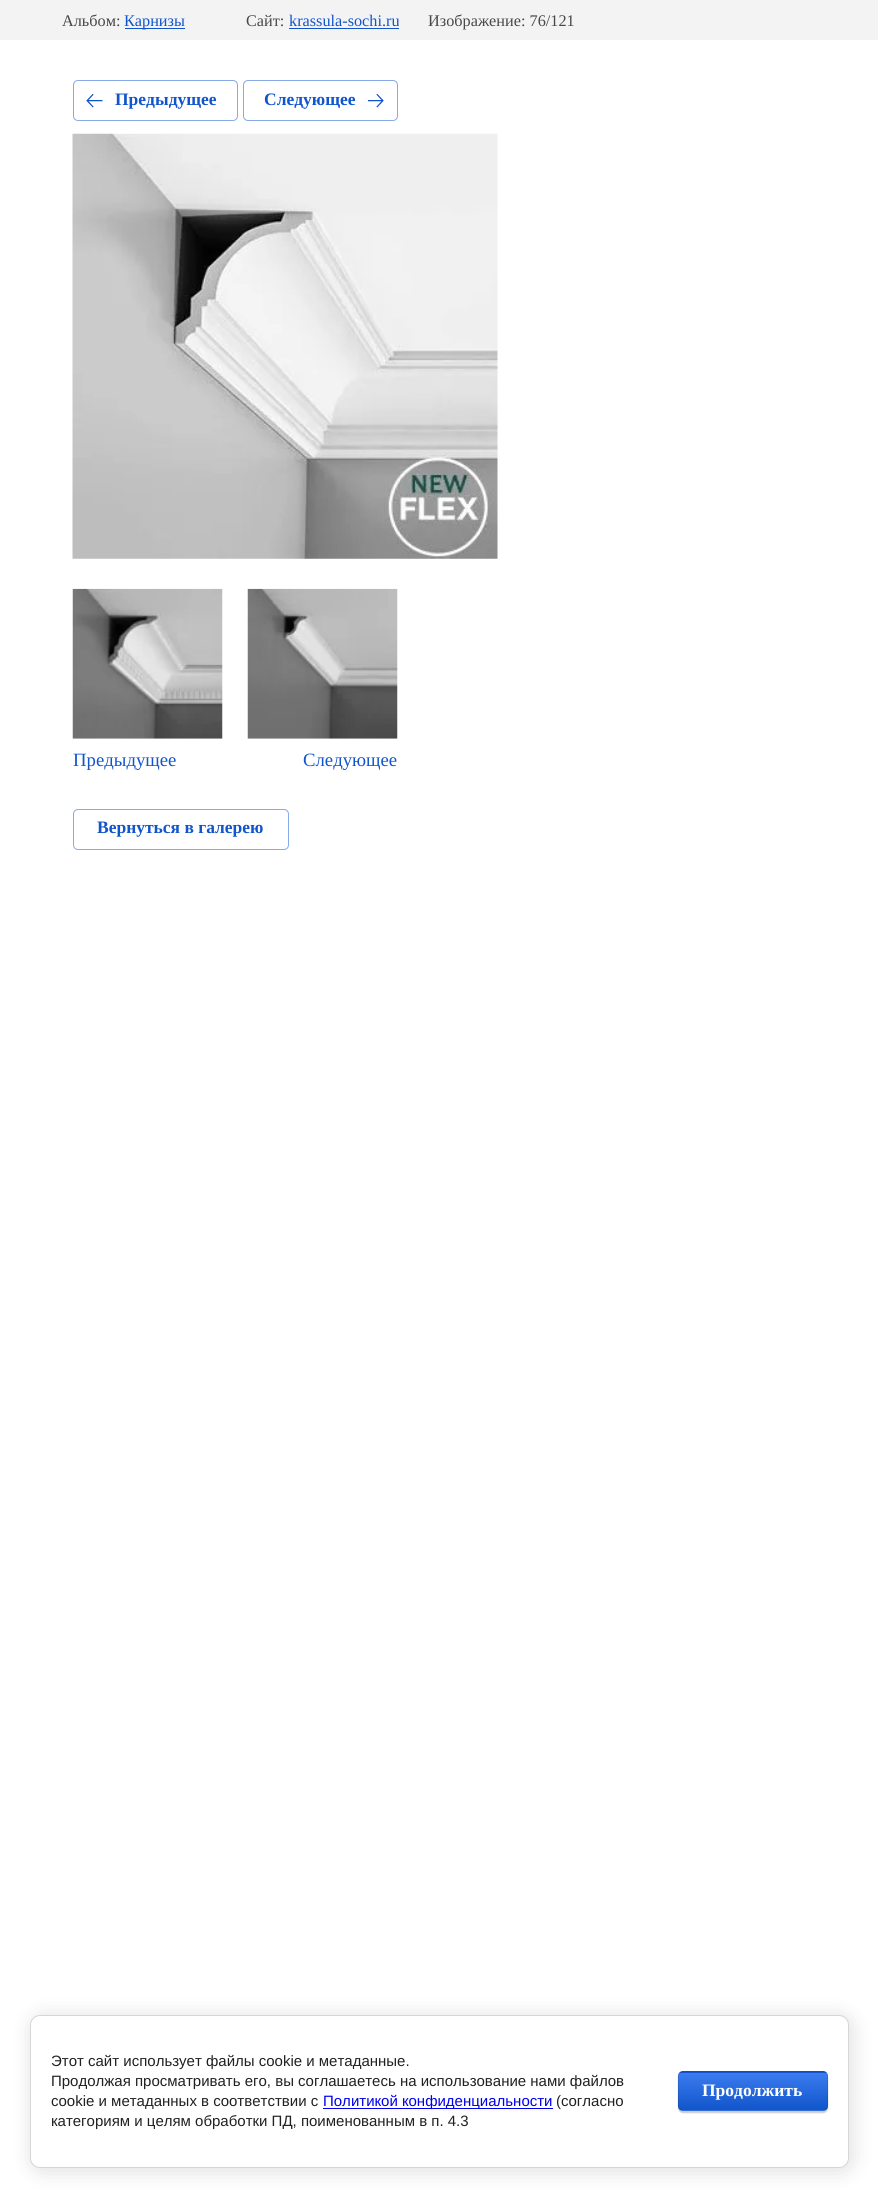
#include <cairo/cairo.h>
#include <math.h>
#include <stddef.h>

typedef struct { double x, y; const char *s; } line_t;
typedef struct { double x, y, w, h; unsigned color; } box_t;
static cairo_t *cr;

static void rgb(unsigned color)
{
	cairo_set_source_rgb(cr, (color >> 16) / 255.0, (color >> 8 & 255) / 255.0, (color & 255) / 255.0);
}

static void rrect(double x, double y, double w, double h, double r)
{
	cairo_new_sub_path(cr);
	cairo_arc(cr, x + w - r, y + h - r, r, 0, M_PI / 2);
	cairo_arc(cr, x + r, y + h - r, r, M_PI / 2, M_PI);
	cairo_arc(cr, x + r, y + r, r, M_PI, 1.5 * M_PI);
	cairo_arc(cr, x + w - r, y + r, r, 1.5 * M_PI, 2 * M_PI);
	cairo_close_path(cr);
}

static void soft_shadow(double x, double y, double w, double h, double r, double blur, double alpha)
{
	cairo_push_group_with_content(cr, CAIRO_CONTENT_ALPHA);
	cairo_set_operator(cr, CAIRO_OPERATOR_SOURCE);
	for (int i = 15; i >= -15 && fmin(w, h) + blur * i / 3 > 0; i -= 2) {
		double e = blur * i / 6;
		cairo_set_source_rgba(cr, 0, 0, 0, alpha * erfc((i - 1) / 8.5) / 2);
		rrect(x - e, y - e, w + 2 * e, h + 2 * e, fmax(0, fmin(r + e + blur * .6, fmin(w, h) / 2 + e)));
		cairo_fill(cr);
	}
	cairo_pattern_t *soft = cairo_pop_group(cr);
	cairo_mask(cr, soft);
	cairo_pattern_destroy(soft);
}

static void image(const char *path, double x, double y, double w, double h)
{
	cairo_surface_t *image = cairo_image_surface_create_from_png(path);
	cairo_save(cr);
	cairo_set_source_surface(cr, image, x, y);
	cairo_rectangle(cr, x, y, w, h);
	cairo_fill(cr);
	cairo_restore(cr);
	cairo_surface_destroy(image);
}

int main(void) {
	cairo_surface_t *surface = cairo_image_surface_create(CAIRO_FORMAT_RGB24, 878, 2197);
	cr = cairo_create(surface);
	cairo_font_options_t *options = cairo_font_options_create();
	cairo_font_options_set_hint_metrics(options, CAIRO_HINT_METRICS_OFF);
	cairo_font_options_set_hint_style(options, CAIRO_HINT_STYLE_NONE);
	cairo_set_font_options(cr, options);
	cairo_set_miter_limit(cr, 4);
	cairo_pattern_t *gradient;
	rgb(0xffffff);
	cairo_paint(cr);
	{
		static const box_t items[] = {
			{0, 0, 878, 40, 0xf3f3f3},
			{125, 28, 60, 1, 0x1155cc},
			{289, 28, 110, 1, 0x1155cc},
		};
		for (size_t i = 0; i < sizeof items / sizeof *items; i++) {
			rgb(items[i].color);
			cairo_rectangle(cr, items[i].x, items[i].y, items[i].w, items[i].h);
			cairo_fill(cr);
		}
	}
	rrect(73.5, 80.5, 164, 40, 4.5);
	rgb(0x88aae6);
	cairo_set_line_width(cr, 1);
	cairo_stroke(cr);
	image("img/1.png", 86, 94, 17, 14);
	rrect(243.5, 80.5, 154, 40, 4.5);
	cairo_stroke(cr);
	image("img/2.png", 368, 94, 16, 14);
	image("img/3.png", 72, 133, 426, 426);
	image("img/4.png", 72, 588, 151, 151);
	image("img/5.png", 247, 588, 151, 151);
	rrect(73.5, 809.5, 215, 40, 4.5);
	cairo_stroke(cr);
	rgb(0x000000);
	soft_shadow(33, 2018, 818, 152, 10, 11, 0.14);
	rgb(0xffffff);
	rrect(30.5, 2015.5, 818, 152, 9.5);
	cairo_fill_preserve(cr);
	rgb(0xd6d6d6);
	cairo_stroke(cr);
	rgb(0x0000ee);
	cairo_rectangle(cr, 323, 2108, 230, 1);
	cairo_fill(cr);
	rgb(0x000000);
	soft_shadow(678, 2073, 150, 40, 5, 0.5, 0.2);
	cairo_save(cr);
	rrect(678, 2071, 150, 40, 5);
	cairo_clip(cr);
	gradient = cairo_pattern_create_linear(753, 2035, 753, 2073);
	cairo_pattern_add_color_stop_rgba(gradient, 0, 0.231, 0.486, 0.937, 1);
	cairo_pattern_add_color_stop_rgba(gradient, 1, 0.067, 0.333, 0.8, 1);
	cairo_set_source(cr, gradient);
	cairo_pattern_destroy(gradient);
	cairo_rectangle(cr, 678, 2071, 150, 2);
	cairo_fill(cr);
	gradient = cairo_pattern_create_linear(753, 2073, 753, 2110);
	cairo_pattern_add_color_stop_rgba(gradient, 0, 0.231, 0.486, 0.937, 1);
	cairo_pattern_add_color_stop_rgba(gradient, 1, 0.067, 0.333, 0.8, 1);
	cairo_set_source(cr, gradient);
	cairo_pattern_destroy(gradient);
	cairo_rectangle(cr, 678, 2073, 150, 37);
	cairo_fill(cr);
	gradient = cairo_pattern_create_linear(753, 2110, 753, 2148);
	cairo_pattern_add_color_stop_rgba(gradient, 0, 0.231, 0.486, 0.937, 1);
	cairo_pattern_add_color_stop_rgba(gradient, 1, 0.067, 0.333, 0.8, 1);
	cairo_set_source(cr, gradient);
	cairo_pattern_destroy(gradient);
	cairo_rectangle(cr, 678, 2110, 150, 1);
	cairo_fill(cr);
	cairo_restore(cr);
	rrect(678.5, 2071.5, 149, 39, 4.5);
	cairo_set_source_rgba(cr, 0, 0, 0, 0.1);
	cairo_stroke(cr);
	cairo_select_font_face(cr, "Liberation Serif", CAIRO_FONT_SLANT_NORMAL, CAIRO_FONT_WEIGHT_NORMAL);
	cairo_set_font_size(cr, 16.25);
	rgb(0x484848);
	cairo_move_to(cr, 62, 26);
	cairo_show_text(cr, "Альбом:");
	rgb(0x1155cc);
	cairo_move_to(cr, 124, 26);
	cairo_show_text(cr, "Карнизы");
	rgb(0x484848);
	cairo_move_to(cr, 246, 26);
	cairo_show_text(cr, "Сайт:");
	rgb(0x1155cc);
	cairo_move_to(cr, 289, 26);
	cairo_show_text(cr, "krassula-sochi.ru");
	rgb(0x484848);
	cairo_move_to(cr, 428, 26);
	cairo_show_text(cr, "Изображение: 76/121");
	cairo_select_font_face(cr, "Liberation Serif", CAIRO_FONT_SLANT_NORMAL, CAIRO_FONT_WEIGHT_BOLD);
	cairo_set_font_size(cr, 17.5);
	rgb(0x1155cc);
	cairo_move_to(cr, 115, 105);
	cairo_show_text(cr, "Предыдущее");
	cairo_move_to(cr, 264, 105);
	cairo_show_text(cr, "Следующее");
	cairo_select_font_face(cr, "Liberation Serif", CAIRO_FONT_SLANT_NORMAL, CAIRO_FONT_WEIGHT_NORMAL);
	cairo_set_font_size(cr, 18.75);
	cairo_move_to(cr, 73, 766);
	cairo_show_text(cr, "Предыдущее");
	cairo_move_to(cr, 303, 766);
	cairo_show_text(cr, "Следующее");
	cairo_select_font_face(cr, "Liberation Serif", CAIRO_FONT_SLANT_NORMAL, CAIRO_FONT_WEIGHT_BOLD);
	cairo_set_font_size(cr, 17.5);
	cairo_move_to(cr, 97, 833);
	cairo_show_text(cr, "Вернуться в галерею");
	cairo_select_font_face(cr, "Liberation Sans", CAIRO_FONT_SLANT_NORMAL, CAIRO_FONT_WEIGHT_NORMAL);
	cairo_set_font_size(cr, 15);
	rgb(0x212121);
	{
		static const line_t items[] = {
			{51, 2066, "Этот сайт использует файлы cookie и метаданные."},
			{51, 2086, "Продолжая просматривать его, вы соглашаетесь на использование нами файлов"},
			{51, 2106, "cookie и метаданных в соответствии с"},
		};
		for (size_t i = 0; i < sizeof items / sizeof *items; i++) {
			cairo_move_to(cr, items[i].x, items[i].y);
			cairo_show_text(cr, items[i].s);
		}
	}
	rgb(0x0000ee);
	cairo_move_to(cr, 323, 2106);
	cairo_show_text(cr, "Политикой конфиденциальности");
	rgb(0x212121);
	cairo_move_to(cr, 556, 2106);
	cairo_show_text(cr, "(согласно");
	cairo_move_to(cr, 51, 2126);
	cairo_show_text(cr, "категориям и целям обработки ПД, поименованным в п. 4.3");
	cairo_select_font_face(cr, "Liberation Serif", CAIRO_FONT_SLANT_NORMAL, CAIRO_FONT_WEIGHT_BOLD);
	cairo_set_font_size(cr, 17.5);
	rgb(0xffffff);
	cairo_move_to(cr, 702, 2096);
	cairo_show_text(cr, "Продолжить");
	cairo_surface_write_to_png(surface, "page.png");
	cairo_font_options_destroy(options);
	cairo_destroy(cr);
	cairo_surface_destroy(surface);
	return 0;
}
